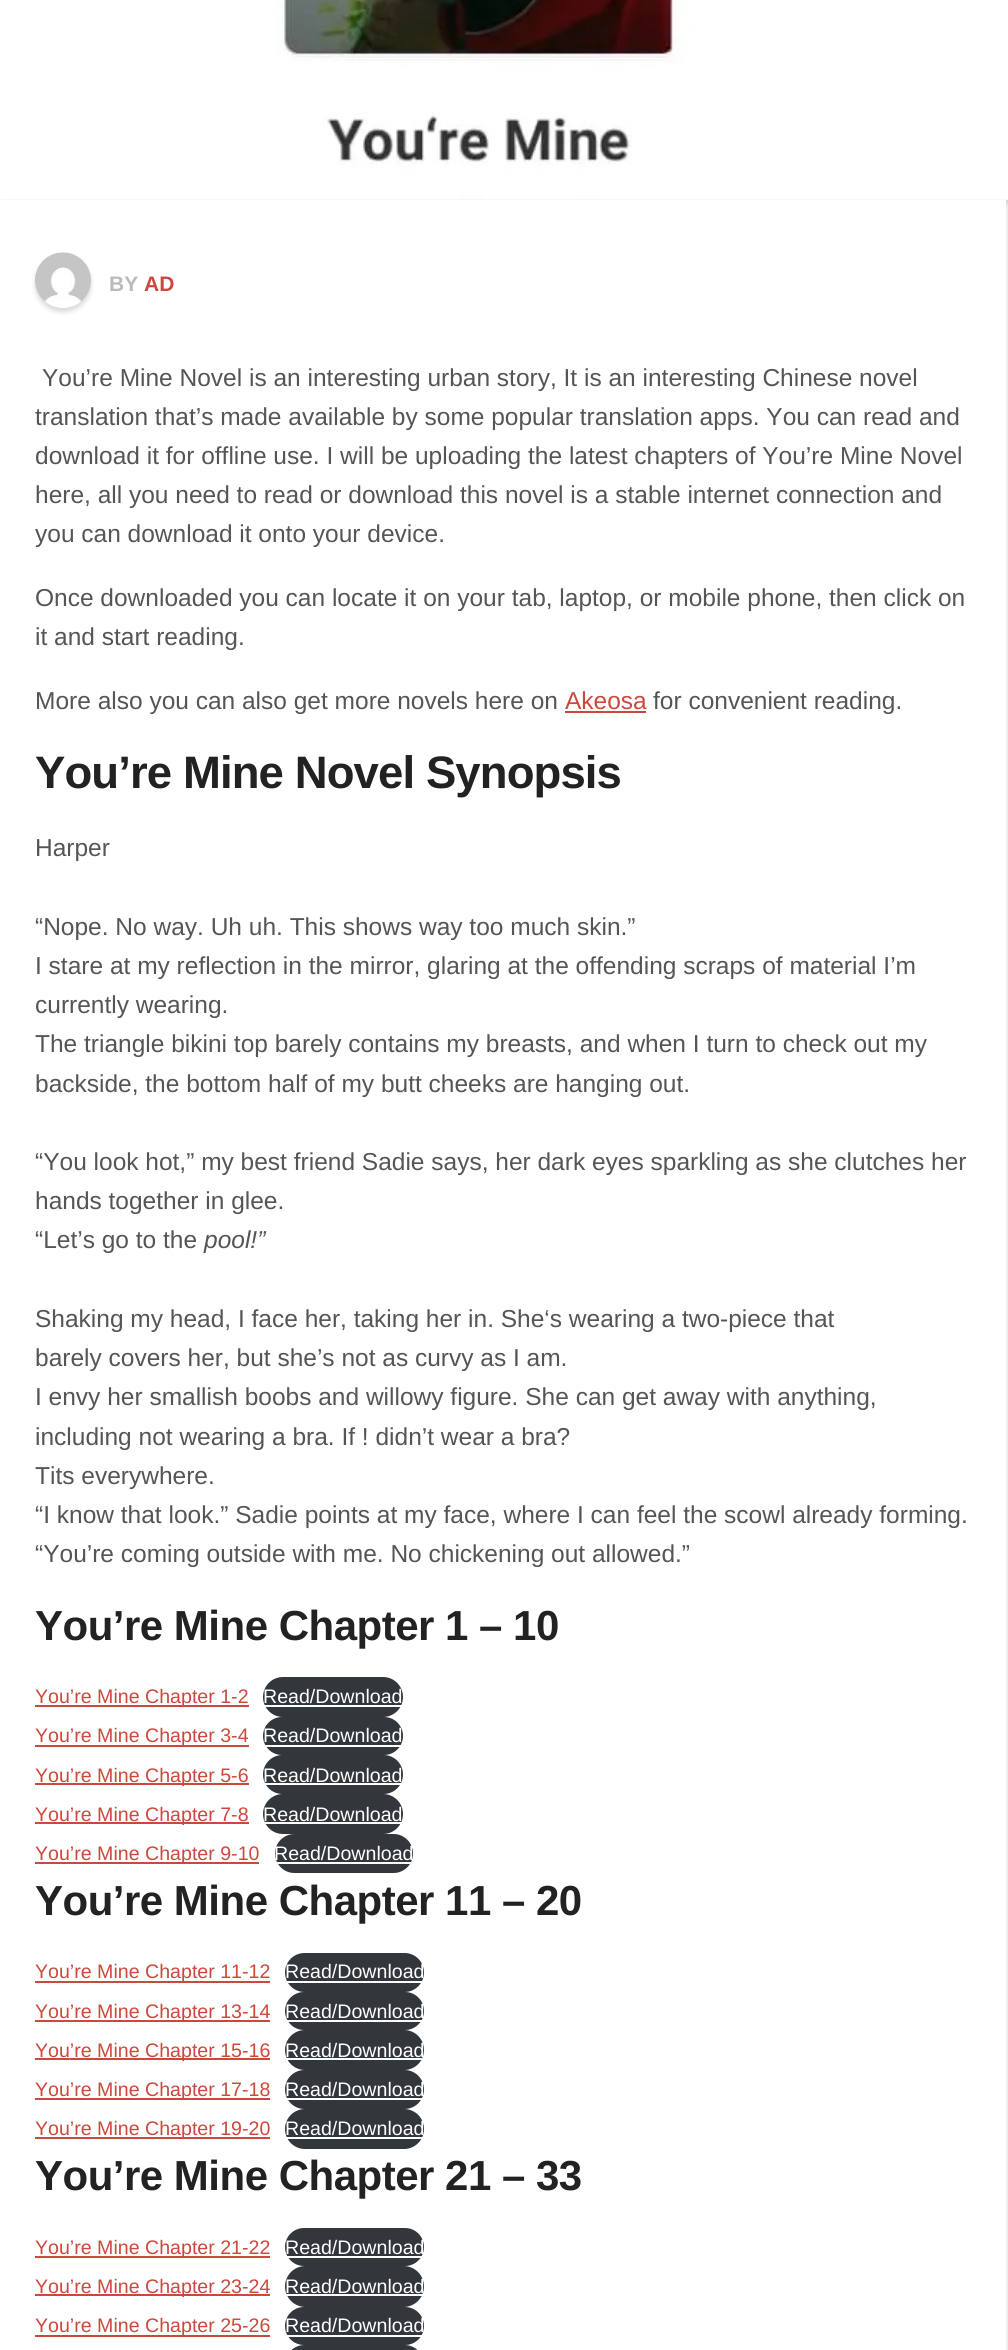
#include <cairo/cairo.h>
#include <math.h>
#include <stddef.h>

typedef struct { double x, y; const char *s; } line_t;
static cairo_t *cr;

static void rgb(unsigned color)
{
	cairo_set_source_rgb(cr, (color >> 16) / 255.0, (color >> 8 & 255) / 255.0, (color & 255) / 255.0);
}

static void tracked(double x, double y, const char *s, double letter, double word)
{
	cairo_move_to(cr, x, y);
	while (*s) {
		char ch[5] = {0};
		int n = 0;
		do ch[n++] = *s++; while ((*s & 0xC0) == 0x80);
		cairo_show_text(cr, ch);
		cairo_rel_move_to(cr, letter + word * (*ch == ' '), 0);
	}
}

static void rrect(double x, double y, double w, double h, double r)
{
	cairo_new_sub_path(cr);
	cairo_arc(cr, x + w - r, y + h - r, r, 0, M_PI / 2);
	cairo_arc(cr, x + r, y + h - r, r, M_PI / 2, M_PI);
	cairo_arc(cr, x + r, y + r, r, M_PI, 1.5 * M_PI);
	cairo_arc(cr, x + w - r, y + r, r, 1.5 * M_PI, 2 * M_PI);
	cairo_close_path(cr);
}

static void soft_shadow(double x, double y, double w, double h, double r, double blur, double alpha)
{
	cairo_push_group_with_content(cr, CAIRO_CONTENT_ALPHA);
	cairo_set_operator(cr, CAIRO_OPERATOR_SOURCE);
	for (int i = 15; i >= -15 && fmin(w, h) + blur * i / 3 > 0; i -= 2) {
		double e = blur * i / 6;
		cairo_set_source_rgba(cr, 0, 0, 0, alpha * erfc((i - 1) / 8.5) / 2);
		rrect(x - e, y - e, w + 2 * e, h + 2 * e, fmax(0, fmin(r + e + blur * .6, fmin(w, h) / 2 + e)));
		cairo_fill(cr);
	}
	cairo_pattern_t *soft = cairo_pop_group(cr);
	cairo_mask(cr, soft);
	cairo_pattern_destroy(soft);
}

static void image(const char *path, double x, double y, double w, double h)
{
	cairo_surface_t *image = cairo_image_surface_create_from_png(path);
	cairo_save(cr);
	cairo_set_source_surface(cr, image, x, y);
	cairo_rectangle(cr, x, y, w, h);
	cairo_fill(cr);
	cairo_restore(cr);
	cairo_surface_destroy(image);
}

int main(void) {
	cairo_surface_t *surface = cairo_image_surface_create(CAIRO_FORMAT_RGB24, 1008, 2350);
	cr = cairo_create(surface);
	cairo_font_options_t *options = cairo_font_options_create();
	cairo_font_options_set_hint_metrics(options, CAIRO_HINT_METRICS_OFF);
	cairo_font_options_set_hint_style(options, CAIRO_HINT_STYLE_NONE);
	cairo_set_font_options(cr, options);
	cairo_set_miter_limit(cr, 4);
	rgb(0xffffff);
	cairo_paint(cr);
	rgb(0xeeeeee);
	cairo_rectangle(cr, 1006, 200, 2, 2150);
	cairo_fill(cr);
	rgb(0x000000);
	soft_shadow(0, -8, 1008, 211, 0, 2.5, 0.15);
	image("img/1.png", 0, 0, 1008, 200);
	rgb(0xffffff);
	cairo_rectangle(cr, 0, 200, 1006, 7);
	cairo_fill(cr);
	rgb(0x000000);
	soft_shadow(35, 256, 56, 56, 28, 2.5, 0.15);
	image("img/2.png", 35, 252, 56, 56);
	rgb(0xcd483c);
	cairo_rectangle(cr, 565, 711, 81, 2);
	cairo_fill(cr);
	cairo_rectangle(cr, 35, 1705, 214, 2);
	cairo_fill(cr);
	rgb(0x32373c);
	rrect(263, 1677, 140, 40, 20);
	cairo_fill(cr);
	rgb(0xffffff);
	cairo_rectangle(cr, 263, 1705, 140, 2);
	cairo_fill(cr);
	rgb(0xcd483c);
	cairo_rectangle(cr, 35, 1745, 214, 2);
	cairo_fill(cr);
	rgb(0x32373c);
	rrect(263, 1717, 140, 38, 19);
	cairo_fill(cr);
	rgb(0xffffff);
	cairo_rectangle(cr, 263, 1745, 140, 2);
	cairo_fill(cr);
	rgb(0xcd483c);
	cairo_rectangle(cr, 35, 1783, 214, 2);
	cairo_fill(cr);
	rgb(0x32373c);
	rrect(263, 1755, 140, 39, 19.5);
	cairo_fill(cr);
	rgb(0xffffff);
	cairo_rectangle(cr, 263, 1783, 140, 2);
	cairo_fill(cr);
	rgb(0xcd483c);
	cairo_rectangle(cr, 35, 1822, 214, 2);
	cairo_fill(cr);
	rgb(0x32373c);
	rrect(263, 1794, 140, 40, 20);
	cairo_fill(cr);
	rgb(0xffffff);
	cairo_rectangle(cr, 263, 1822, 140, 2);
	cairo_fill(cr);
	rgb(0xcd483c);
	cairo_rectangle(cr, 35, 1862, 224, 2);
	cairo_fill(cr);
	rgb(0x32373c);
	rrect(275, 1834, 138, 39, 19.5);
	cairo_fill(cr);
	rgb(0xffffff);
	cairo_rectangle(cr, 275, 1862, 138, 2);
	cairo_fill(cr);
	rgb(0xcd483c);
	cairo_rectangle(cr, 35, 1981, 235, 2);
	cairo_fill(cr);
	rgb(0x32373c);
	rrect(285, 1953, 139, 39, 19.5);
	cairo_fill(cr);
	rgb(0xffffff);
	cairo_rectangle(cr, 285, 1981, 139, 2);
	cairo_fill(cr);
	rgb(0xcd483c);
	cairo_rectangle(cr, 35, 2020, 235, 2);
	cairo_fill(cr);
	rgb(0x32373c);
	rrect(285, 1992, 139, 38, 19);
	cairo_fill(cr);
	rgb(0xffffff);
	cairo_rectangle(cr, 285, 2020, 139, 2);
	cairo_fill(cr);
	rgb(0xcd483c);
	cairo_rectangle(cr, 35, 2058, 235, 2);
	cairo_fill(cr);
	rgb(0x32373c);
	rrect(285, 2030, 139, 40, 20);
	cairo_fill(cr);
	rgb(0xffffff);
	cairo_rectangle(cr, 285, 2058, 139, 2);
	cairo_fill(cr);
	rgb(0xcd483c);
	cairo_rectangle(cr, 35, 2098, 235, 2);
	cairo_fill(cr);
	rgb(0x32373c);
	rrect(285, 2070, 139, 39, 19.5);
	cairo_fill(cr);
	rgb(0xffffff);
	cairo_rectangle(cr, 285, 2098, 139, 2);
	cairo_fill(cr);
	rgb(0xcd483c);
	cairo_rectangle(cr, 35, 2137, 235, 2);
	cairo_fill(cr);
	rgb(0x32373c);
	rrect(285, 2109, 139, 40, 20);
	cairo_fill(cr);
	rgb(0xffffff);
	cairo_rectangle(cr, 285, 2137, 139, 2);
	cairo_fill(cr);
	rgb(0xcd483c);
	cairo_rectangle(cr, 35, 2256, 235, 2);
	cairo_fill(cr);
	rgb(0x32373c);
	rrect(285, 2228, 139, 38, 19);
	cairo_fill(cr);
	rgb(0xffffff);
	cairo_rectangle(cr, 285, 2256, 139, 2);
	cairo_fill(cr);
	rgb(0xcd483c);
	cairo_rectangle(cr, 35, 2294, 235, 2);
	cairo_fill(cr);
	rgb(0x32373c);
	rrect(285, 2266, 139, 41, 20.5);
	cairo_fill(cr);
	rgb(0xffffff);
	cairo_rectangle(cr, 285, 2294, 139, 2);
	cairo_fill(cr);
	rgb(0xcd483c);
	cairo_rectangle(cr, 35, 2335, 235, 2);
	cairo_fill(cr);
	rgb(0x32373c);
	rrect(285, 2307, 139, 38, 19);
	cairo_fill(cr);
	rgb(0xffffff);
	cairo_rectangle(cr, 285, 2335, 139, 2);
	cairo_fill(cr);
	rgb(0x32373c);
	rrect(285, 2345, 139, 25, 19.5);
	cairo_fill(cr);
	cairo_select_font_face(cr, "Liberation Sans", CAIRO_FONT_SLANT_NORMAL, CAIRO_FONT_WEIGHT_BOLD);
	cairo_set_font_size(cr, 21);
	rgb(0xbbbbbb);
	cairo_move_to(cr, 109, 291);
	cairo_show_text(cr, "BY");
	rgb(0xcd483c);
	cairo_move_to(cr, 144, 291);
	cairo_show_text(cr, "AD");
	cairo_select_font_face(cr, "Liberation Sans", CAIRO_FONT_SLANT_NORMAL, CAIRO_FONT_WEIGHT_NORMAL);
	cairo_set_font_size(cr, 24.5);
	rgb(0x555555);
	{
		static const line_t items[] = {
			{42, 386, "You’re Mine Novel is an interesting urban story, It is an interesting Chinese novel"},
			{35, 425, "translation that’s made available by some popular translation apps. You can read and"},
			{35, 464, "download it for offline use. I will be uploading the latest chapters of You’re Mine Novel"},
			{35, 503, "here, all you need to read or download this novel is a stable internet connection and"},
			{35, 542, "you can download it onto your device."},
			{35, 606, "Once downloaded you can locate it on your tab, laptop, or mobile phone, then click on"},
			{35, 645, "it and start reading."},
			{35, 709, "More also you can also get more novels here on"},
		};
		for (size_t i = 0; i < sizeof items / sizeof *items; i++) {
			cairo_move_to(cr, items[i].x, items[i].y);
			cairo_show_text(cr, items[i].s);
		}
	}
	rgb(0xcd483c);
	cairo_move_to(cr, 565, 709);
	cairo_show_text(cr, "Akeosa");
	rgb(0x555555);
	cairo_move_to(cr, 653, 709);
	cairo_show_text(cr, "for convenient reading.");
	cairo_select_font_face(cr, "Liberation Sans", CAIRO_FONT_SLANT_NORMAL, CAIRO_FONT_WEIGHT_BOLD);
	cairo_set_font_size(cr, 45.5);
	rgb(0x222222);
	tracked(35, 788, "You’re Mine Novel Synopsis", -0.9, 0);
	cairo_select_font_face(cr, "Liberation Sans", CAIRO_FONT_SLANT_NORMAL, CAIRO_FONT_WEIGHT_NORMAL);
	cairo_set_font_size(cr, 24.5);
	rgb(0x555555);
	{
		static const line_t items[] = {
			{35, 856, "Harper"},
			{35, 935, "“Nope. No way. Uh uh. This shows way too much skin.”"},
			{35, 974, "I stare at my reflection in the mirror, glaring at the offending scraps of material I’m"},
			{35, 1013, "currently wearing."},
			{35, 1052, "The triangle bikini top barely contains my breasts, and when I turn to check out my"},
			{35, 1092, "backside, the bottom half of my butt cheeks are hanging out."},
			{35, 1170, "“You look hot,” my best friend Sadie says, her dark eyes sparkling as she clutches her"},
			{35, 1209, "hands together in glee."},
			{35, 1248, "“Let’s go to the"},
		};
		for (size_t i = 0; i < sizeof items / sizeof *items; i++) {
			cairo_move_to(cr, items[i].x, items[i].y);
			cairo_show_text(cr, items[i].s);
		}
	}
	cairo_select_font_face(cr, "Liberation Sans", CAIRO_FONT_SLANT_ITALIC, CAIRO_FONT_WEIGHT_NORMAL);
	cairo_move_to(cr, 204, 1248);
	cairo_show_text(cr, "pool!”");
	cairo_select_font_face(cr, "Liberation Sans", CAIRO_FONT_SLANT_NORMAL, CAIRO_FONT_WEIGHT_NORMAL);
	{
		static const line_t items[] = {
			{35, 1327, "Shaking my head, I face her, taking her in. She‘s wearing a two-piece that"},
			{35, 1366, "barely covers her, but she’s not as curvy as I am."},
			{35, 1405, "I envy her smallish boobs and willowy figure. She can get away with anything,"},
			{35, 1445, "including not wearing a bra. If ! didn’t wear a bra?"},
			{35, 1484, "Tits everywhere."},
			{35, 1523, "“I know that look.” Sadie points at my face, where I can feel the scowl already forming."},
			{35, 1562, "“You’re coming outside with me. No chickening out allowed.”"},
		};
		for (size_t i = 0; i < sizeof items / sizeof *items; i++) {
			cairo_move_to(cr, items[i].x, items[i].y);
			cairo_show_text(cr, items[i].s);
		}
	}
	cairo_select_font_face(cr, "Liberation Sans", CAIRO_FONT_SLANT_NORMAL, CAIRO_FONT_WEIGHT_BOLD);
	cairo_set_font_size(cr, 42);
	rgb(0x222222);
	tracked(35, 1640, "You’re Mine Chapter 1 – 10", -0.5, 0);
	cairo_select_font_face(cr, "Liberation Sans", CAIRO_FONT_SLANT_NORMAL, CAIRO_FONT_WEIGHT_NORMAL);
	cairo_set_font_size(cr, 19.6);
	rgb(0xcd483c);
	cairo_move_to(cr, 35, 1703);
	cairo_show_text(cr, "You’re Mine Chapter 1-2");
	rgb(0xffffff);
	cairo_move_to(cr, 263, 1703);
	cairo_show_text(cr, "Read/Download");
	rgb(0xcd483c);
	cairo_move_to(cr, 35, 1742);
	cairo_show_text(cr, "You’re Mine Chapter 3-4");
	rgb(0xffffff);
	cairo_move_to(cr, 263, 1742);
	cairo_show_text(cr, "Read/Download");
	rgb(0xcd483c);
	cairo_move_to(cr, 35, 1782);
	cairo_show_text(cr, "You’re Mine Chapter 5-6");
	rgb(0xffffff);
	cairo_move_to(cr, 263, 1782);
	cairo_show_text(cr, "Read/Download");
	rgb(0xcd483c);
	cairo_move_to(cr, 35, 1821);
	cairo_show_text(cr, "You’re Mine Chapter 7-8");
	rgb(0xffffff);
	cairo_move_to(cr, 263, 1821);
	cairo_show_text(cr, "Read/Download");
	rgb(0xcd483c);
	cairo_move_to(cr, 35, 1860);
	cairo_show_text(cr, "You’re Mine Chapter 9-10");
	rgb(0xffffff);
	cairo_move_to(cr, 274, 1860);
	cairo_show_text(cr, "Read/Download");
	cairo_select_font_face(cr, "Liberation Sans", CAIRO_FONT_SLANT_NORMAL, CAIRO_FONT_WEIGHT_BOLD);
	cairo_set_font_size(cr, 42);
	rgb(0x222222);
	tracked(35, 1915, "You’re Mine Chapter 11 – 20", -0.5, 0);
	cairo_select_font_face(cr, "Liberation Sans", CAIRO_FONT_SLANT_NORMAL, CAIRO_FONT_WEIGHT_NORMAL);
	cairo_set_font_size(cr, 19.6);
	rgb(0xcd483c);
	cairo_move_to(cr, 35, 1978);
	cairo_show_text(cr, "You’re Mine Chapter 11-12");
	rgb(0xffffff);
	cairo_move_to(cr, 285, 1978);
	cairo_show_text(cr, "Read/Download");
	rgb(0xcd483c);
	cairo_move_to(cr, 35, 2018);
	cairo_show_text(cr, "You’re Mine Chapter 13-14");
	rgb(0xffffff);
	cairo_move_to(cr, 285, 2018);
	cairo_show_text(cr, "Read/Download");
	rgb(0xcd483c);
	cairo_move_to(cr, 35, 2057);
	cairo_show_text(cr, "You’re Mine Chapter 15-16");
	rgb(0xffffff);
	cairo_move_to(cr, 285, 2057);
	cairo_show_text(cr, "Read/Download");
	rgb(0xcd483c);
	cairo_move_to(cr, 35, 2096);
	cairo_show_text(cr, "You’re Mine Chapter 17-18");
	rgb(0xffffff);
	cairo_move_to(cr, 285, 2096);
	cairo_show_text(cr, "Read/Download");
	rgb(0xcd483c);
	cairo_move_to(cr, 35, 2135);
	cairo_show_text(cr, "You’re Mine Chapter 19-20");
	rgb(0xffffff);
	cairo_move_to(cr, 285, 2135);
	cairo_show_text(cr, "Read/Download");
	cairo_select_font_face(cr, "Liberation Sans", CAIRO_FONT_SLANT_NORMAL, CAIRO_FONT_WEIGHT_BOLD);
	cairo_set_font_size(cr, 42);
	rgb(0x222222);
	tracked(35, 2190, "You’re Mine Chapter 21 – 33", -0.5, 0);
	cairo_select_font_face(cr, "Liberation Sans", CAIRO_FONT_SLANT_NORMAL, CAIRO_FONT_WEIGHT_NORMAL);
	cairo_set_font_size(cr, 19.6);
	rgb(0xcd483c);
	cairo_move_to(cr, 35, 2254);
	cairo_show_text(cr, "You’re Mine Chapter 21-22");
	rgb(0xffffff);
	cairo_move_to(cr, 285, 2254);
	cairo_show_text(cr, "Read/Download");
	rgb(0xcd483c);
	cairo_move_to(cr, 35, 2293);
	cairo_show_text(cr, "You’re Mine Chapter 23-24");
	rgb(0xffffff);
	cairo_move_to(cr, 285, 2293);
	cairo_show_text(cr, "Read/Download");
	rgb(0xcd483c);
	cairo_move_to(cr, 35, 2332);
	cairo_show_text(cr, "You’re Mine Chapter 25-26");
	rgb(0xffffff);
	cairo_move_to(cr, 285, 2332);
	cairo_show_text(cr, "Read/Download");
	cairo_surface_write_to_png(surface, "page.png");
	cairo_font_options_destroy(options);
	cairo_destroy(cr);
	cairo_surface_destroy(surface);
	return 0;
}
